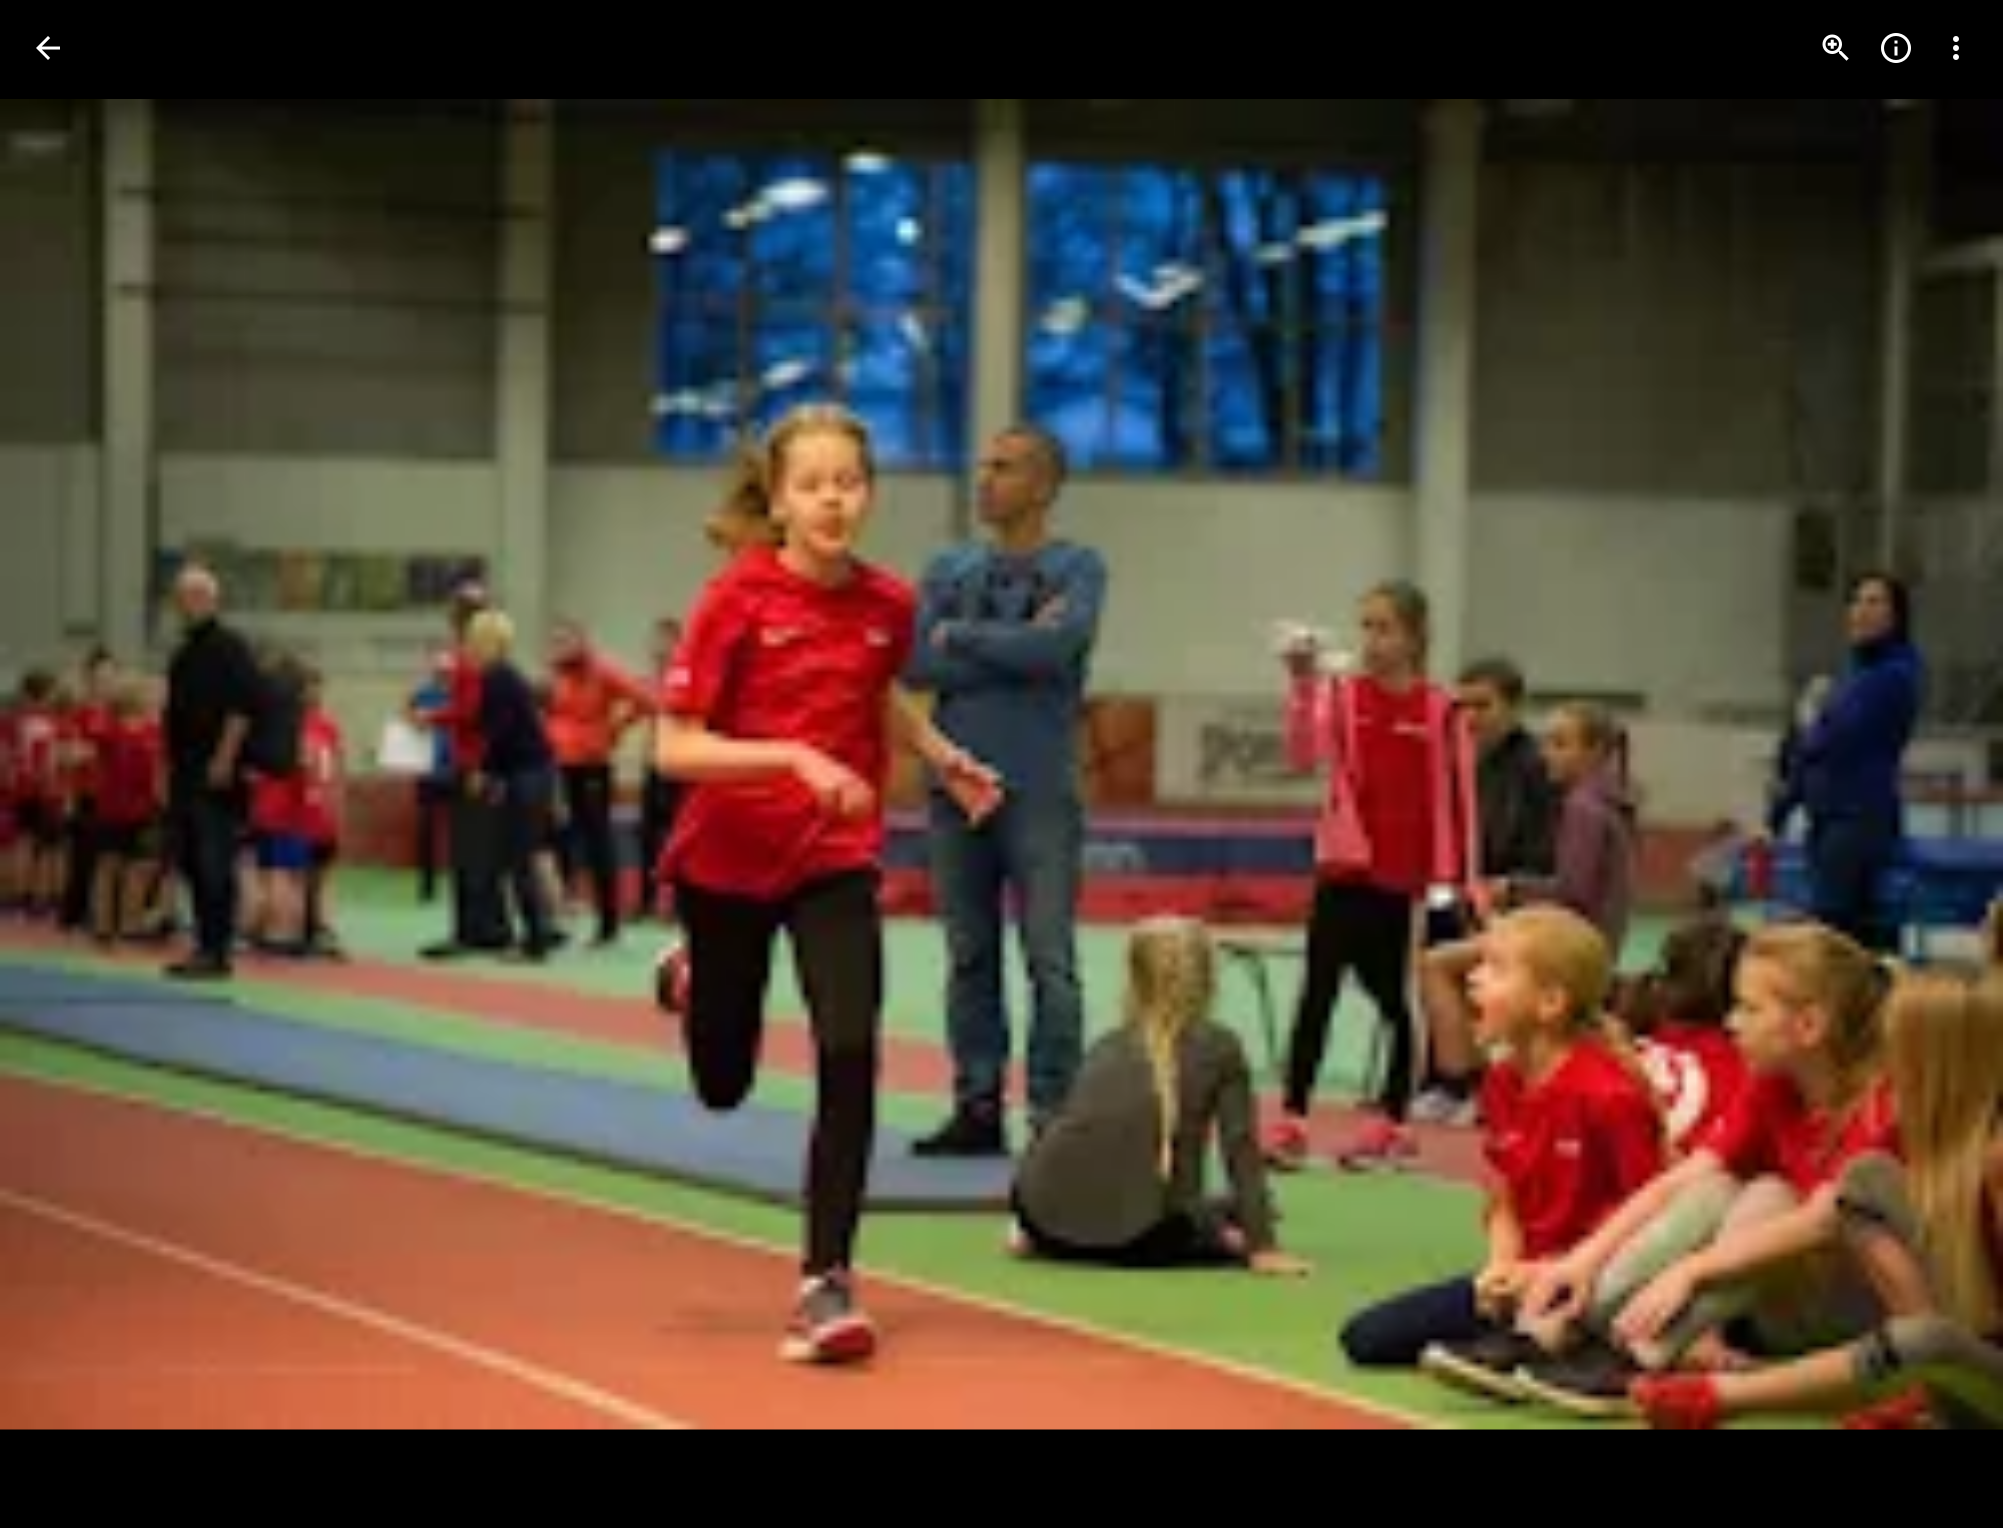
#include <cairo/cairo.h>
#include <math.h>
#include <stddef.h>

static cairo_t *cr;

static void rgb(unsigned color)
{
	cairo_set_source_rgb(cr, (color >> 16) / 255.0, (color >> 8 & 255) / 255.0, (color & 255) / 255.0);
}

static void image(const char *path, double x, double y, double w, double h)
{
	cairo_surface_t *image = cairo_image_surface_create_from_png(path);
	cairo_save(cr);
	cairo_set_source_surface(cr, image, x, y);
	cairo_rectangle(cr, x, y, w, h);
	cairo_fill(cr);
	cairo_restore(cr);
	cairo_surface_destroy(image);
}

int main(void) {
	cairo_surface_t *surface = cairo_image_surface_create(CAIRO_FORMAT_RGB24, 2003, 1528);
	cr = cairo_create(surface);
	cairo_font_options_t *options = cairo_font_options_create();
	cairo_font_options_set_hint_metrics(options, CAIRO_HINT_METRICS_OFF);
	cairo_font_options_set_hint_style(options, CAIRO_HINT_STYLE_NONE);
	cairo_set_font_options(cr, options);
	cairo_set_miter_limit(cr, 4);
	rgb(0x000000);
	cairo_paint(cr);
	image("img/1.png", 36, 36, 24, 24);
	image("img/2.png", 1822, 34, 27, 27);
	image("img/3.png", 1881, 33, 30, 30);
	image("img/4.png", 1953, 36, 6, 24);
	image("img/5.png", 0, 99, 2003, 1331);
	cairo_surface_write_to_png(surface, "page.png");
	cairo_font_options_destroy(options);
	cairo_destroy(cr);
	cairo_surface_destroy(surface);
	return 0;
}
